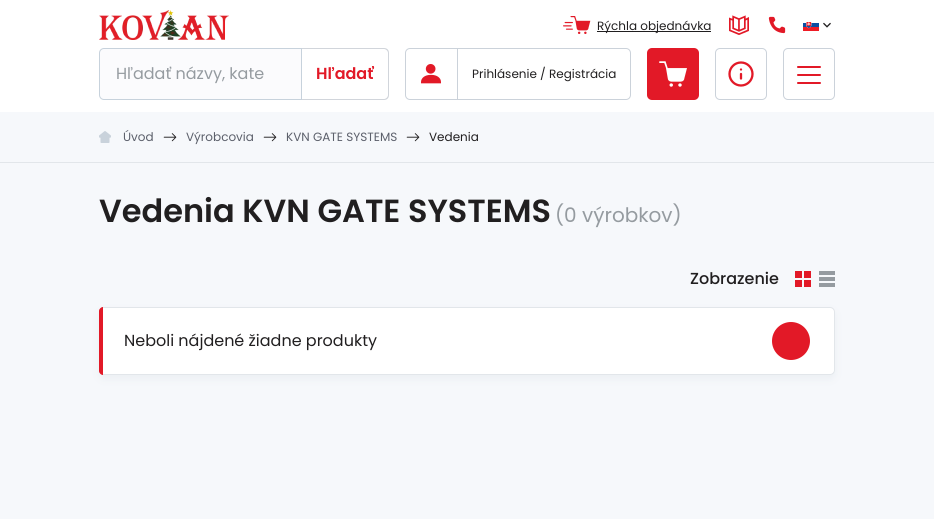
#include <cairo/cairo.h>
#include <math.h>
#include <stddef.h>

typedef struct { double x, y; const char *s; } line_t;
static cairo_t *cr;

static void rgb(unsigned color)
{
	cairo_set_source_rgb(cr, (color >> 16) / 255.0, (color >> 8 & 255) / 255.0, (color & 255) / 255.0);
}

static void rrect(double x, double y, double w, double h, double r)
{
	cairo_new_sub_path(cr);
	cairo_arc(cr, x + w - r, y + h - r, r, 0, M_PI / 2);
	cairo_arc(cr, x + r, y + h - r, r, M_PI / 2, M_PI);
	cairo_arc(cr, x + r, y + r, r, M_PI, 1.5 * M_PI);
	cairo_arc(cr, x + w - r, y + r, r, 1.5 * M_PI, 2 * M_PI);
	cairo_close_path(cr);
}

static void soft_shadow(double x, double y, double w, double h, double r, double blur, double alpha)
{
	cairo_push_group_with_content(cr, CAIRO_CONTENT_ALPHA);
	cairo_set_operator(cr, CAIRO_OPERATOR_SOURCE);
	for (int i = 15; i >= -15 && fmin(w, h) + blur * i / 3 > 0; i -= 2) {
		double e = blur * i / 6;
		cairo_set_source_rgba(cr, 0, 0, 0, alpha * erfc((i - 1) / 8.5) / 2);
		rrect(x - e, y - e, w + 2 * e, h + 2 * e, fmax(0, fmin(r + e + blur * .6, fmin(w, h) / 2 + e)));
		cairo_fill(cr);
	}
	cairo_pattern_t *soft = cairo_pop_group(cr);
	cairo_mask(cr, soft);
	cairo_pattern_destroy(soft);
}

static void image(const char *path, double x, double y, double w, double h)
{
	cairo_surface_t *image = cairo_image_surface_create_from_png(path);
	cairo_save(cr);
	cairo_set_source_surface(cr, image, x, y);
	cairo_rectangle(cr, x, y, w, h);
	cairo_fill(cr);
	cairo_restore(cr);
	cairo_surface_destroy(image);
}

int main(void) {
	cairo_surface_t *surface = cairo_image_surface_create(CAIRO_FORMAT_RGB24, 934, 519);
	cr = cairo_create(surface);
	cairo_font_options_t *options = cairo_font_options_create();
	cairo_font_options_set_hint_metrics(options, CAIRO_HINT_METRICS_OFF);
	cairo_font_options_set_hint_style(options, CAIRO_HINT_STYLE_NONE);
	cairo_set_font_options(cr, options);
	cairo_set_miter_limit(cr, 4);
	rgb(0xf6f8fb);
	cairo_paint(cr);
	rgb(0xffffff);
	cairo_rectangle(cr, 0, 0, 934, 112);
	cairo_fill(cr);
	image("img/1.png", 99, 10, 130, 30);
	image("img/2.png", 563, 16, 28, 18);
	rgb(0x211f20);
	cairo_rectangle(cr, 597, 31, 114, 1);
	cairo_fill(cr);
	image("img/3.png", 729, 15, 20, 20);
	image("img/4.png", 768, 16, 18, 18);
	image("img/5.png", 803, 22, 16, 9);
	image("img/6.png", 823, 22, 8, 6);
	rgb(0xfbfbfd);
	cairo_new_path(cr);
	cairo_move_to(cr, 104, 48.5);
	cairo_line_to(cr, 301.5, 48.5);
	cairo_line_to(cr, 301.5, 99.5);
	cairo_line_to(cr, 104, 99.5);
	cairo_curve_to(cr, 101.5, 99.5, 99.5, 97.5, 99.5, 95);
	cairo_line_to(cr, 99.5, 53);
	cairo_curve_to(cr, 99.5, 50.5, 101.5, 48.5, 104, 48.5);
	cairo_close_path(cr);
	cairo_fill_preserve(cr);
	rgb(0xc7d2dc);
	cairo_set_line_width(cr, 1);
	cairo_stroke(cr);
	rgb(0xd1d5db);
	cairo_set_fill_rule(cr, CAIRO_FILL_RULE_EVEN_ODD);
	cairo_new_path(cr);
	cairo_move_to(cr, 302, 48);
	cairo_line_to(cr, 384, 48);
	cairo_curve_to(cr, 387, 48, 389, 50, 389, 53);
	cairo_line_to(cr, 389, 95);
	cairo_curve_to(cr, 389, 98, 387, 100, 384, 100);
	cairo_line_to(cr, 302, 100);
	cairo_close_path(cr);
	cairo_move_to(cr, 302, 49);
	cairo_line_to(cr, 384, 49);
	cairo_curve_to(cr, 386, 49, 388, 51, 388, 53);
	cairo_line_to(cr, 388, 95);
	cairo_curve_to(cr, 388, 97, 386, 99, 384, 99);
	cairo_line_to(cr, 302, 99);
	cairo_close_path(cr);
	cairo_fill(cr);
	rrect(405.5, 48.5, 225, 51, 4.5);
	rgb(0xcbd2da);
	cairo_stroke(cr);
	cairo_rectangle(cr, 457, 49, 1, 50);
	cairo_fill(cr);
	image("img/7.png", 421, 64, 20, 20);
	rgb(0xe21927);
	rrect(647, 48, 52, 52, 5);
	cairo_fill(cr);
	image("img/8.png", 659, 61, 28, 26);
	rrect(715.5, 48.5, 51, 51, 4.5);
	rgb(0xcbd2da);
	cairo_stroke(cr);
	cairo_arc(cr, 741, 74, 11.5, 0, 2 * M_PI);
	rgb(0xe21927);
	cairo_set_line_width(cr, 2.3);
	cairo_stroke(cr);
	cairo_new_path(cr);
	cairo_move_to(cr, 741, 78.5);
	cairo_line_to(cr, 741, 74);
	cairo_move_to(cr, 741, 69.5);
	cairo_line_to(cr, 741, 69.5);
	cairo_set_line_cap(cr, CAIRO_LINE_CAP_ROUND);
	cairo_set_line_join(cr, CAIRO_LINE_JOIN_ROUND);
	cairo_stroke(cr);
	rrect(783.5, 48.5, 51, 51, 4.5);
	rgb(0xcbd2da);
	cairo_set_line_width(cr, 1);
	cairo_set_line_cap(cr, CAIRO_LINE_CAP_BUTT);
	cairo_set_line_join(cr, CAIRO_LINE_JOIN_MITER);
	cairo_stroke(cr);
	rgb(0xe21927);
	rrect(797, 66, 24, 2, 1);
	cairo_fill(cr);
	rrect(797, 74, 24, 2, 1);
	cairo_fill(cr);
	rrect(797, 82, 24, 2, 1);
	cairo_fill(cr);
	rgb(0xe2e6ea);
	cairo_rectangle(cr, 0, 162, 934, 1);
	cairo_fill(cr);
	image("img/9.png", 99, 131, 12, 12);
	image("img/10.png", 163, 133, 14, 9);
	image("img/10.png", 263, 133, 14, 9);
	image("img/10.png", 406, 133, 14, 9);
	image("img/11.png", 795, 271, 16, 16);
	image("img/12.png", 819, 271, 16, 16);
	rgb(0xe1e6eb);
	soft_shadow(99, 311, 736, 68, 5, 4, 0.5);
	rgb(0xffffff);
	rrect(99.5, 307.5, 735, 67, 4.5);
	cairo_fill_preserve(cr);
	rgb(0xe2e6ea);
	cairo_stroke(cr);
	rgb(0xe21927);
	cairo_new_path(cr);
	cairo_move_to(cr, 103, 307);
	cairo_line_to(cr, 103, 375);
	cairo_curve_to(cr, 101, 375, 99, 373, 99, 371);
	cairo_line_to(cr, 99, 311);
	cairo_curve_to(cr, 99, 309, 101, 307, 103, 307);
	cairo_close_path(cr);
	cairo_fill(cr);
	cairo_arc(cr, 791, 341, 19, 0, 2 * M_PI);
	cairo_fill(cr);
	cairo_select_font_face(cr, "Poppins", CAIRO_FONT_SLANT_NORMAL, CAIRO_FONT_WEIGHT_NORMAL);
	cairo_set_font_size(cr, 12);
	rgb(0x211f20);
	cairo_move_to(cr, 597, 30);
	cairo_show_text(cr, "Rýchla objednávka");
	cairo_set_font_size(cr, 16);
	rgb(0x959ba0);
	cairo_move_to(cr, 116, 79);
	cairo_show_text(cr, "Hľadať názvy, kate");
	cairo_select_font_face(cr, "Poppins SemiBold", CAIRO_FONT_SLANT_NORMAL, CAIRO_FONT_WEIGHT_NORMAL);
	rgb(0xe21927);
	cairo_move_to(cr, 316, 79);
	cairo_show_text(cr, "Hľadať");
	cairo_select_font_face(cr, "Poppins", CAIRO_FONT_SLANT_NORMAL, CAIRO_FONT_WEIGHT_NORMAL);
	cairo_set_font_size(cr, 12);
	rgb(0x211f20);
	cairo_move_to(cr, 472, 78);
	cairo_show_text(cr, "Prihlásenie / Registrácia");
	rgb(0x5c606b);
	{
		static const line_t items[] = {
			{123, 141, "Úvod"},
			{186, 141, "Výrobcovia"},
			{286, 141, "KVN GATE SYSTEMS"},
		};
		for (size_t i = 0; i < sizeof items / sizeof *items; i++) {
			cairo_move_to(cr, items[i].x, items[i].y);
			cairo_show_text(cr, items[i].s);
		}
	}
	rgb(0x211f20);
	cairo_move_to(cr, 429, 141);
	cairo_show_text(cr, "Vedenia");
	cairo_select_font_face(cr, "Poppins SemiBold", CAIRO_FONT_SLANT_NORMAL, CAIRO_FONT_WEIGHT_NORMAL);
	cairo_set_font_size(cr, 32);
	cairo_move_to(cr, 99, 222);
	cairo_show_text(cr, "Vedenia KVN GATE SYSTEMS");
	cairo_select_font_face(cr, "Poppins", CAIRO_FONT_SLANT_NORMAL, CAIRO_FONT_WEIGHT_NORMAL);
	cairo_set_font_size(cr, 20);
	rgb(0x959ba0);
	cairo_move_to(cr, 555, 222);
	cairo_show_text(cr, "(0 výrobkov)");
	cairo_select_font_face(cr, "Poppins Medium", CAIRO_FONT_SLANT_NORMAL, CAIRO_FONT_WEIGHT_NORMAL);
	cairo_set_font_size(cr, 16);
	rgb(0x211f20);
	cairo_move_to(cr, 690, 284);
	cairo_show_text(cr, "Zobrazenie");
	cairo_select_font_face(cr, "Poppins", CAIRO_FONT_SLANT_NORMAL, CAIRO_FONT_WEIGHT_NORMAL);
	cairo_move_to(cr, 124, 346);
	cairo_show_text(cr, "Neboli nájdené žiadne produkty");
	cairo_surface_write_to_png(surface, "page.png");
	cairo_font_options_destroy(options);
	cairo_destroy(cr);
	cairo_surface_destroy(surface);
	return 0;
}
